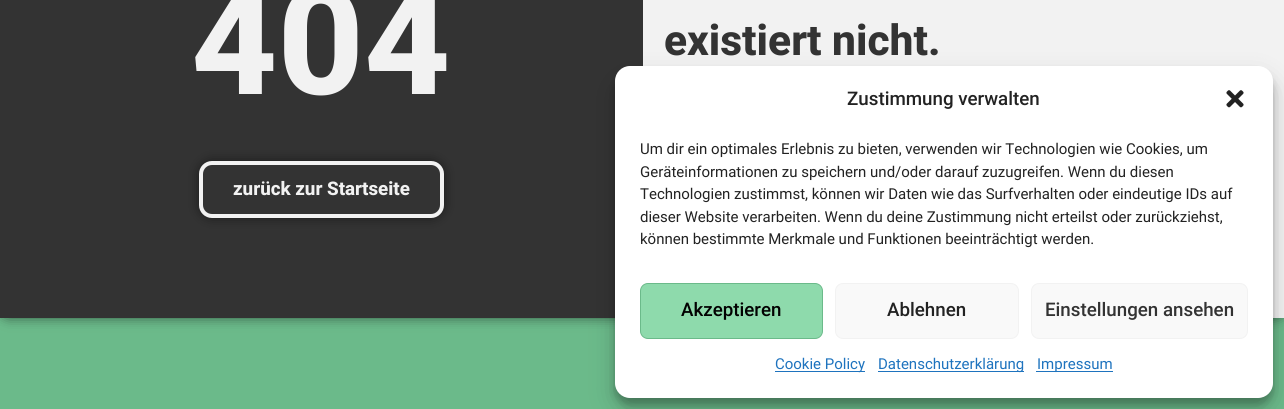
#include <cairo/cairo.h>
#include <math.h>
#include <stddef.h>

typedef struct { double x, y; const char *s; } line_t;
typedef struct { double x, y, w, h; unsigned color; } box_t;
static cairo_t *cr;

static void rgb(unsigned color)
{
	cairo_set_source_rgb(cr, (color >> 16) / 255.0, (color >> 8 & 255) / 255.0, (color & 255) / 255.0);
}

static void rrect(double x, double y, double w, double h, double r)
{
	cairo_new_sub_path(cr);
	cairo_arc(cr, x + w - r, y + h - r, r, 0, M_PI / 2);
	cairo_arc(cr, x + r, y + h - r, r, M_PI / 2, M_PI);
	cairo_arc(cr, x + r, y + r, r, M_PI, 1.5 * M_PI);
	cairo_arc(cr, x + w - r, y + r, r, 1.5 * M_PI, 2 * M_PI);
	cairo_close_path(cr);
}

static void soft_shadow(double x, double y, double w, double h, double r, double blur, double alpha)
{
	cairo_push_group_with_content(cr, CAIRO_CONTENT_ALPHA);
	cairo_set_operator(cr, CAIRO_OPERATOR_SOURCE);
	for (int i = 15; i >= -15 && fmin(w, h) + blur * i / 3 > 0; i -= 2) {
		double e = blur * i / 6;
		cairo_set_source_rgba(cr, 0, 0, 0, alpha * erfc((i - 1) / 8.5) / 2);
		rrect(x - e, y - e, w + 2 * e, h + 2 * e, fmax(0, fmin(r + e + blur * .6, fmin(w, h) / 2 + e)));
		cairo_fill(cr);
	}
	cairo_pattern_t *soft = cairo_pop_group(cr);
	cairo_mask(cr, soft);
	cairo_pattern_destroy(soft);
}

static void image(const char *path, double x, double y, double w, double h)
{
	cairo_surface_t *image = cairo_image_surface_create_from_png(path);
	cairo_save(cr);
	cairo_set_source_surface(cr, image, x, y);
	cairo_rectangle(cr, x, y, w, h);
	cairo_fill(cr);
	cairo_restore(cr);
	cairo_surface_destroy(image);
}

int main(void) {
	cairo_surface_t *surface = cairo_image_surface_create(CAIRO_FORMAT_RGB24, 1284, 409);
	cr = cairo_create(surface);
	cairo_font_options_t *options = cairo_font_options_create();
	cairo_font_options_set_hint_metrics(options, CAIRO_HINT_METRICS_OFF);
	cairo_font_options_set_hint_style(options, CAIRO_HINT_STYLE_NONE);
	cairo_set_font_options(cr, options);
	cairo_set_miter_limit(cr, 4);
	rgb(0x6bba8a);
	cairo_paint(cr);
	rgb(0x000000);
	soft_shadow(0, -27, 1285, 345, 9, 6, 0.5);
	rgb(0x333333);
	cairo_rectangle(cr, 0, 0, 643, 318);
	cairo_fill(cr);
	cairo_save(cr);
	cairo_set_fill_rule(cr, CAIRO_FILL_RULE_EVEN_ODD);
	cairo_new_path(cr);
	cairo_move_to(cr, 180, 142);
	cairo_line_to(cr, 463, 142);
	cairo_line_to(cr, 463, 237);
	cairo_line_to(cr, 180, 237);
	cairo_close_path(cr);
	cairo_move_to(cr, 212, 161);
	cairo_line_to(cr, 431, 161);
	cairo_curve_to(cr, 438, 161, 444, 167, 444, 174);
	cairo_line_to(cr, 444, 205);
	cairo_curve_to(cr, 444, 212, 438, 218, 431, 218);
	cairo_line_to(cr, 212, 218);
	cairo_curve_to(cr, 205, 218, 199, 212, 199, 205);
	cairo_line_to(cr, 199, 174);
	cairo_curve_to(cr, 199, 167, 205, 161, 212, 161);
	cairo_close_path(cr);
	cairo_clip(cr);
	rgb(0x000000);
	soft_shadow(199, 161, 245, 57, 13, 6, 0.5);
	cairo_restore(cr);
	rrect(201, 163, 241, 53, 11);
	rgb(0xf2f2f2);
	cairo_set_line_width(cr, 4);
	cairo_stroke(cr);
	cairo_rectangle(cr, 643, 0, 641, 318);
	cairo_fill(cr);
	rgb(0x000000);
	soft_shadow(615, 74, 658, 331, 15, 4, 0.23);
	soft_shadow(615, 79, 658, 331, 15, 12.5, 0.19);
	rgb(0xffffff);
	rrect(615, 66, 658, 332, 15);
	cairo_fill(cr);
	image("img/1.png", 1226, 90, 18, 18);
	rgb(0x8edaac);
	rrect(640.5, 283.5, 182, 55, 7.5);
	cairo_fill_preserve(cr);
	rgb(0x6bba8a);
	cairo_set_line_width(cr, 1);
	cairo_stroke(cr);
	rgb(0xf9f9f9);
	rrect(835.5, 283.5, 183, 55, 7.5);
	cairo_fill_preserve(cr);
	rgb(0xf2f2f2);
	cairo_stroke(cr);
	rgb(0xf9f9f9);
	rrect(1031.5, 283.5, 216, 55, 7.5);
	cairo_fill_preserve(cr);
	rgb(0xf2f2f2);
	cairo_stroke(cr);
	{
		static const box_t items[] = {
			{775, 371, 90, 1, 0x1e73be},
			{878, 371, 146, 1, 0x1e73be},
			{1036, 371, 77, 1, 0x1e73be},
		};
		for (size_t i = 0; i < sizeof items / sizeof *items; i++) {
			rgb(items[i].color);
			cairo_rectangle(cr, items[i].x, items[i].y, items[i].w, items[i].h);
			cairo_fill(cr);
		}
	}
	cairo_select_font_face(cr, "Roboto ExtraBold", CAIRO_FONT_SLANT_NORMAL, CAIRO_FONT_WEIGHT_NORMAL);
	cairo_set_font_size(cr, 150);
	rgb(0xf2f2f2);
	cairo_move_to(cr, 191, 94);
	cairo_show_text(cr, "404");
	cairo_set_font_size(cr, 18.75);
	cairo_move_to(cr, 233, 195);
	cairo_show_text(cr, "zurück zur Startseite");
	cairo_set_font_size(cr, 42.5);
	rgb(0x333333);
	cairo_move_to(cr, 664, 55);
	cairo_show_text(cr, "existiert nicht.");
	cairo_select_font_face(cr, "Roboto Medium", CAIRO_FONT_SLANT_NORMAL, CAIRO_FONT_WEIGHT_NORMAL);
	cairo_set_font_size(cr, 18.75);
	rgb(0x222222);
	cairo_move_to(cr, 847, 105);
	cairo_show_text(cr, "Zustimmung verwalten");
	cairo_select_font_face(cr, "Roboto", CAIRO_FONT_SLANT_NORMAL, CAIRO_FONT_WEIGHT_NORMAL);
	cairo_set_font_size(cr, 15);
	{
		static const line_t items[] = {
			{640, 154, "Um dir ein optimales Erlebnis zu bieten, verwenden wir Technologien wie Cookies, um"},
			{640, 177, "Geräteinformationen zu speichern und/oder darauf zuzugreifen. Wenn du diesen"},
			{640, 199, "Technologien zustimmst, können wir Daten wie das Surfverhalten oder eindeutige IDs auf"},
			{640, 222, "dieser Website verarbeiten. Wenn du deine Zustimmung nicht erteilst oder zurückziehst,"},
			{640, 244, "können bestimmte Merkmale und Funktionen beeinträchtigt werden."},
		};
		for (size_t i = 0; i < sizeof items / sizeof *items; i++) {
			cairo_move_to(cr, items[i].x, items[i].y);
			cairo_show_text(cr, items[i].s);
		}
	}
	cairo_select_font_face(cr, "Roboto Medium", CAIRO_FONT_SLANT_NORMAL, CAIRO_FONT_WEIGHT_NORMAL);
	cairo_set_font_size(cr, 18.75);
	rgb(0x020101);
	cairo_move_to(cr, 681, 316);
	cairo_show_text(cr, "Akzeptieren");
	rgb(0x222222);
	cairo_move_to(cr, 887, 316);
	cairo_show_text(cr, "Ablehnen");
	rgb(0x333333);
	cairo_move_to(cr, 1045, 316);
	cairo_show_text(cr, "Einstellungen ansehen");
	cairo_select_font_face(cr, "Roboto", CAIRO_FONT_SLANT_NORMAL, CAIRO_FONT_WEIGHT_NORMAL);
	cairo_set_font_size(cr, 15);
	rgb(0x1e73be);
	{
		static const line_t items[] = {
			{775, 369, "Cookie Policy"},
			{878, 369, "Datenschutzerklärung"},
			{1037, 369, "Impressum"},
		};
		for (size_t i = 0; i < sizeof items / sizeof *items; i++) {
			cairo_move_to(cr, items[i].x, items[i].y);
			cairo_show_text(cr, items[i].s);
		}
	}
	cairo_surface_write_to_png(surface, "page.png");
	cairo_font_options_destroy(options);
	cairo_destroy(cr);
	cairo_surface_destroy(surface);
	return 0;
}
